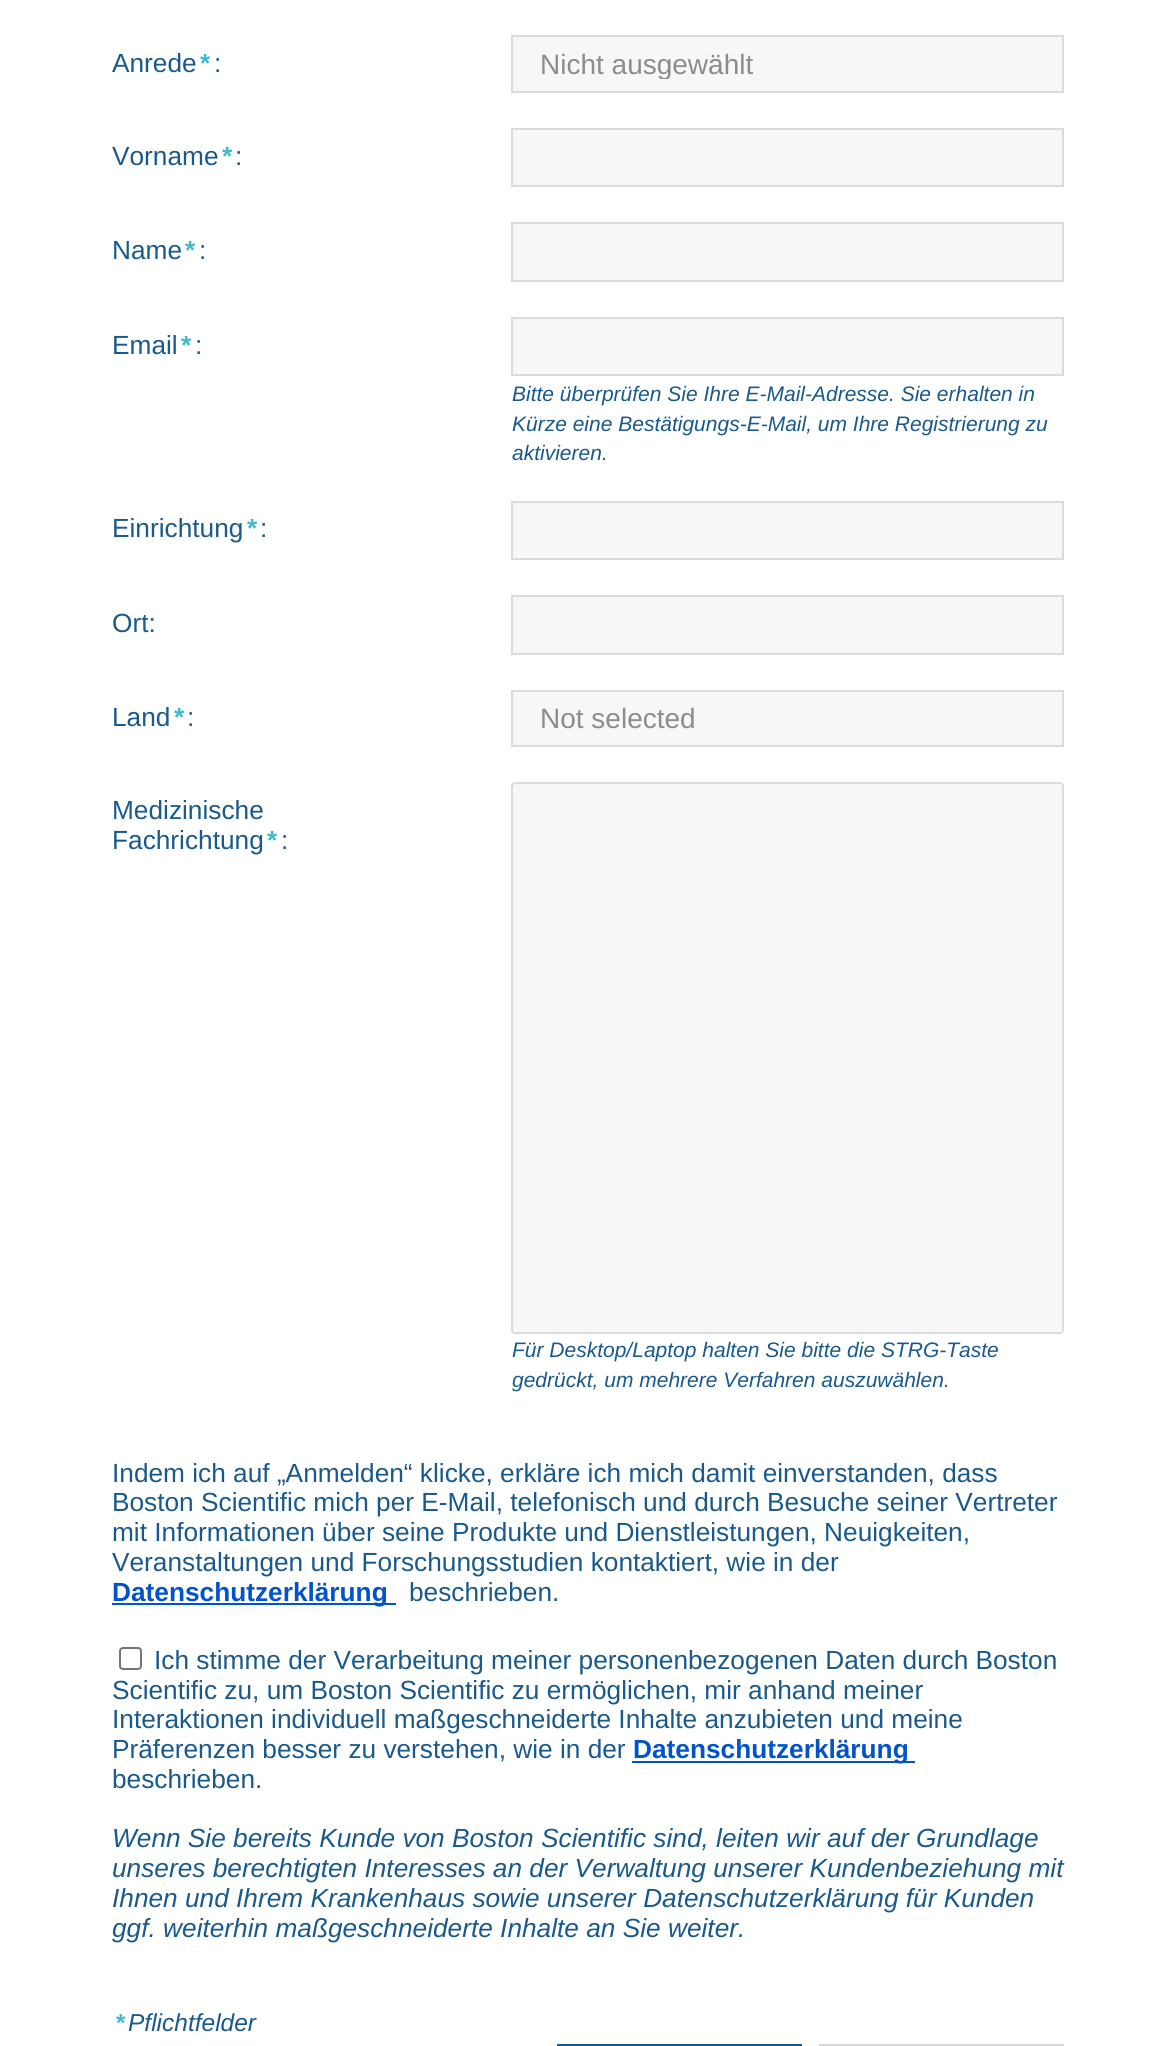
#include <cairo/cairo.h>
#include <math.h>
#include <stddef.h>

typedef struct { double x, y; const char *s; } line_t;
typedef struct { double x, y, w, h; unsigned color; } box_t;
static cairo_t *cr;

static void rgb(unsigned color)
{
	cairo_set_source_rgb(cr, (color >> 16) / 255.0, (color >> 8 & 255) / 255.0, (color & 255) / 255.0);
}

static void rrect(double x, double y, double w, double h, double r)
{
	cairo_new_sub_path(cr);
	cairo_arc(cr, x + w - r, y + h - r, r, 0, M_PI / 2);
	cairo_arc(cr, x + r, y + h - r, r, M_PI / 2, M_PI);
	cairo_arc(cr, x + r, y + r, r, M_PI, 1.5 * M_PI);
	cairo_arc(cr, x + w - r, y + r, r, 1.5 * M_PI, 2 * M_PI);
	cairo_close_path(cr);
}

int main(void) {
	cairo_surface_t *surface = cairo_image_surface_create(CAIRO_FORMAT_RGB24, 1176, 2046);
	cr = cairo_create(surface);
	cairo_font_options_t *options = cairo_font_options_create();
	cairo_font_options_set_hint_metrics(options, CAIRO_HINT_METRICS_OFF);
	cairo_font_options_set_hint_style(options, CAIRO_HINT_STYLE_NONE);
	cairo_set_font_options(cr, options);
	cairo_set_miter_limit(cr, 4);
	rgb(0xffffff);
	cairo_paint(cr);
	rgb(0xf7f7f7);
	cairo_rectangle(cr, 512, 36, 551, 56);
	cairo_fill_preserve(cr);
	rgb(0xdbdbdb);
	cairo_stroke(cr);
	rgb(0xf7f7f7);
	cairo_rectangle(cr, 512, 129, 551, 57);
	cairo_fill_preserve(cr);
	rgb(0xdbdbdb);
	cairo_stroke(cr);
	rgb(0xf7f7f7);
	cairo_rectangle(cr, 512, 223, 551, 58);
	cairo_fill_preserve(cr);
	rgb(0xdbdbdb);
	cairo_stroke(cr);
	rgb(0xf7f7f7);
	cairo_rectangle(cr, 512, 318, 551, 57);
	cairo_fill_preserve(cr);
	rgb(0xdbdbdb);
	cairo_stroke(cr);
	rgb(0xf7f7f7);
	cairo_rectangle(cr, 512, 502, 551, 57);
	cairo_fill_preserve(cr);
	rgb(0xdbdbdb);
	cairo_stroke(cr);
	rgb(0xf7f7f7);
	cairo_rectangle(cr, 512, 596, 551, 58);
	cairo_fill_preserve(cr);
	rgb(0xdbdbdb);
	cairo_stroke(cr);
	rgb(0xf7f7f7);
	cairo_rectangle(cr, 512, 691, 551, 55);
	cairo_fill_preserve(cr);
	rgb(0xdbdbdb);
	cairo_stroke(cr);
	rgb(0xf7f7f7);
	rrect(512, 783, 551, 550, 3);
	cairo_fill_preserve(cr);
	rgb(0xdbdbdb);
	cairo_stroke(cr);
	rgb(0x0153cc);
	cairo_rectangle(cr, 112, 1603, 284, 2);
	cairo_fill(cr);
	rrect(120, 1648, 21, 21, 3);
	rgb(0x767676);
	cairo_stroke(cr);
	{
		static const box_t items[] = {
			{632, 1761, 283, 2, 0x0153cc},
			{557, 2044, 245, 2, 0x19598c},
			{819, 2044, 245, 2, 0xd6d6d6},
		};
		for (size_t i = 0; i < sizeof items / sizeof *items; i++) {
			rgb(items[i].color);
			cairo_rectangle(cr, items[i].x, items[i].y, items[i].w, items[i].h);
			cairo_fill(cr);
		}
	}
	cairo_select_font_face(cr, "Liberation Sans", CAIRO_FONT_SLANT_NORMAL, CAIRO_FONT_WEIGHT_NORMAL);
	cairo_set_font_size(cr, 26.25);
	rgb(0x19598c);
	cairo_move_to(cr, 112, 72);
	cairo_show_text(cr, "Anrede");
	cairo_select_font_face(cr, "Liberation Sans", CAIRO_FONT_SLANT_NORMAL, CAIRO_FONT_WEIGHT_BOLD);
	rgb(0x40b9cc);
	cairo_move_to(cr, 200, 72);
	cairo_show_text(cr, "*");
	cairo_select_font_face(cr, "Liberation Sans", CAIRO_FONT_SLANT_NORMAL, CAIRO_FONT_WEIGHT_NORMAL);
	rgb(0x19598c);
	cairo_move_to(cr, 214, 72);
	cairo_show_text(cr, ":");
	cairo_save(cr);
	cairo_rectangle(cr, 539, 49, 497, 30);
	cairo_clip(cr);
	cairo_set_font_size(cr, 28);
	rgb(0x8a8c8e);
	cairo_move_to(cr, 540, 74);
	cairo_show_text(cr, "Nicht ausgewählt");
	cairo_restore(cr);
	cairo_move_to(cr, 112, 165);
	cairo_show_text(cr, "Vorname");
	cairo_select_font_face(cr, "Liberation Sans", CAIRO_FONT_SLANT_NORMAL, CAIRO_FONT_WEIGHT_BOLD);
	rgb(0x40b9cc);
	cairo_move_to(cr, 222, 165);
	cairo_show_text(cr, "*");
	cairo_select_font_face(cr, "Liberation Sans", CAIRO_FONT_SLANT_NORMAL, CAIRO_FONT_WEIGHT_NORMAL);
	rgb(0x19598c);
	cairo_move_to(cr, 235, 165);
	cairo_show_text(cr, ":");
	cairo_move_to(cr, 112, 259);
	cairo_show_text(cr, "Name");
	cairo_select_font_face(cr, "Liberation Sans", CAIRO_FONT_SLANT_NORMAL, CAIRO_FONT_WEIGHT_BOLD);
	rgb(0x40b9cc);
	cairo_move_to(cr, 185, 259);
	cairo_show_text(cr, "*");
	cairo_select_font_face(cr, "Liberation Sans", CAIRO_FONT_SLANT_NORMAL, CAIRO_FONT_WEIGHT_NORMAL);
	rgb(0x19598c);
	cairo_move_to(cr, 199, 259);
	cairo_show_text(cr, ":");
	cairo_move_to(cr, 112, 354);
	cairo_show_text(cr, "Email");
	cairo_select_font_face(cr, "Liberation Sans", CAIRO_FONT_SLANT_NORMAL, CAIRO_FONT_WEIGHT_BOLD);
	rgb(0x40b9cc);
	cairo_move_to(cr, 181, 354);
	cairo_show_text(cr, "*");
	cairo_select_font_face(cr, "Liberation Sans", CAIRO_FONT_SLANT_NORMAL, CAIRO_FONT_WEIGHT_NORMAL);
	rgb(0x19598c);
	cairo_move_to(cr, 195, 354);
	cairo_show_text(cr, ":");
	cairo_select_font_face(cr, "Liberation Sans", CAIRO_FONT_SLANT_ITALIC, CAIRO_FONT_WEIGHT_NORMAL);
	cairo_set_font_size(cr, 21);
	{
		static const line_t items[] = {
			{512, 401, "Bitte überprüfen Sie Ihre E-Mail-Adresse. Sie erhalten in"},
			{512, 431, "Kürze eine Bestätigungs-E-Mail, um Ihre Registrierung zu"},
			{512, 460, "aktivieren."},
		};
		for (size_t i = 0; i < sizeof items / sizeof *items; i++) {
			cairo_move_to(cr, items[i].x, items[i].y);
			cairo_show_text(cr, items[i].s);
		}
	}
	cairo_select_font_face(cr, "Liberation Sans", CAIRO_FONT_SLANT_NORMAL, CAIRO_FONT_WEIGHT_NORMAL);
	cairo_set_font_size(cr, 26.25);
	cairo_move_to(cr, 112, 537);
	cairo_show_text(cr, "Einrichtung");
	cairo_select_font_face(cr, "Liberation Sans", CAIRO_FONT_SLANT_NORMAL, CAIRO_FONT_WEIGHT_BOLD);
	rgb(0x40b9cc);
	cairo_move_to(cr, 247, 537);
	cairo_show_text(cr, "*");
	cairo_select_font_face(cr, "Liberation Sans", CAIRO_FONT_SLANT_NORMAL, CAIRO_FONT_WEIGHT_NORMAL);
	rgb(0x19598c);
	{
		static const line_t items[] = {
			{260, 537, ":"},
			{112, 632, "Ort:"},
			{112, 726, "Land"},
		};
		for (size_t i = 0; i < sizeof items / sizeof *items; i++) {
			cairo_move_to(cr, items[i].x, items[i].y);
			cairo_show_text(cr, items[i].s);
		}
	}
	cairo_select_font_face(cr, "Liberation Sans", CAIRO_FONT_SLANT_NORMAL, CAIRO_FONT_WEIGHT_BOLD);
	rgb(0x40b9cc);
	cairo_move_to(cr, 174, 726);
	cairo_show_text(cr, "*");
	cairo_select_font_face(cr, "Liberation Sans", CAIRO_FONT_SLANT_NORMAL, CAIRO_FONT_WEIGHT_NORMAL);
	rgb(0x19598c);
	cairo_move_to(cr, 187, 726);
	cairo_show_text(cr, ":");
	cairo_set_font_size(cr, 28);
	rgb(0x8a8c8e);
	cairo_move_to(cr, 540, 728);
	cairo_show_text(cr, "Not selected");
	cairo_set_font_size(cr, 26.25);
	rgb(0x19598c);
	cairo_move_to(cr, 112, 819);
	cairo_show_text(cr, "Medizinische");
	cairo_move_to(cr, 112, 849);
	cairo_show_text(cr, "Fachrichtung");
	cairo_select_font_face(cr, "Liberation Sans", CAIRO_FONT_SLANT_NORMAL, CAIRO_FONT_WEIGHT_BOLD);
	rgb(0x40b9cc);
	cairo_move_to(cr, 267, 849);
	cairo_show_text(cr, "*");
	cairo_select_font_face(cr, "Liberation Sans", CAIRO_FONT_SLANT_NORMAL, CAIRO_FONT_WEIGHT_NORMAL);
	rgb(0x19598c);
	cairo_move_to(cr, 281, 849);
	cairo_show_text(cr, ":");
	cairo_select_font_face(cr, "Liberation Sans", CAIRO_FONT_SLANT_ITALIC, CAIRO_FONT_WEIGHT_NORMAL);
	cairo_set_font_size(cr, 21);
	cairo_move_to(cr, 512, 1357);
	cairo_show_text(cr, "Für Desktop/Laptop halten Sie bitte die STRG-Taste");
	cairo_move_to(cr, 512, 1387);
	cairo_show_text(cr, "gedrückt, um mehrere Verfahren auszuwählen.");
	cairo_select_font_face(cr, "Liberation Sans", CAIRO_FONT_SLANT_NORMAL, CAIRO_FONT_WEIGHT_NORMAL);
	cairo_set_font_size(cr, 26.25);
	{
		static const line_t items[] = {
			{112, 1482, "Indem ich auf „Anmelden“ klicke, erkläre ich mich damit einverstanden, dass"},
			{112, 1511, "Boston Scientific mich per E-Mail, telefonisch und durch Besuche seiner Vertreter"},
			{112, 1541, "mit Informationen über seine Produkte und Dienstleistungen, Neuigkeiten,"},
			{112, 1571, "Veranstaltungen und Forschungsstudien kontaktiert, wie in der"},
		};
		for (size_t i = 0; i < sizeof items / sizeof *items; i++) {
			cairo_move_to(cr, items[i].x, items[i].y);
			cairo_show_text(cr, items[i].s);
		}
	}
	cairo_select_font_face(cr, "Liberation Sans", CAIRO_FONT_SLANT_NORMAL, CAIRO_FONT_WEIGHT_BOLD);
	rgb(0x0153cc);
	cairo_move_to(cr, 112, 1601);
	cairo_show_text(cr, "Datenschutzerklärung");
	cairo_select_font_face(cr, "Liberation Sans", CAIRO_FONT_SLANT_NORMAL, CAIRO_FONT_WEIGHT_NORMAL);
	rgb(0x19598c);
	{
		static const line_t items[] = {
			{409, 1601, "beschrieben."},
			{154, 1669, "Ich stimme der Verarbeitung meiner personenbezogenen Daten durch Boston"},
			{112, 1699, "Scientific zu, um Boston Scientific zu ermöglichen, mir anhand meiner"},
			{112, 1728, "Interaktionen individuell maßgeschneiderte Inhalte anzubieten und meine"},
			{112, 1758, "Präferenzen besser zu verstehen, wie in der"},
		};
		for (size_t i = 0; i < sizeof items / sizeof *items; i++) {
			cairo_move_to(cr, items[i].x, items[i].y);
			cairo_show_text(cr, items[i].s);
		}
	}
	cairo_select_font_face(cr, "Liberation Sans", CAIRO_FONT_SLANT_NORMAL, CAIRO_FONT_WEIGHT_BOLD);
	rgb(0x0153cc);
	cairo_move_to(cr, 633, 1758);
	cairo_show_text(cr, "Datenschutzerklärung");
	cairo_select_font_face(cr, "Liberation Sans", CAIRO_FONT_SLANT_NORMAL, CAIRO_FONT_WEIGHT_NORMAL);
	rgb(0x19598c);
	cairo_move_to(cr, 112, 1788);
	cairo_show_text(cr, "beschrieben.");
	cairo_select_font_face(cr, "Liberation Sans", CAIRO_FONT_SLANT_ITALIC, CAIRO_FONT_WEIGHT_NORMAL);
	{
		static const line_t items[] = {
			{112, 1847, "Wenn Sie bereits Kunde von Boston Scientific sind, leiten wir auf der Grundlage"},
			{112, 1877, "unseres berechtigten Interesses an der Verwaltung unserer Kundenbeziehung mit"},
			{112, 1907, "Ihnen und Ihrem Krankenhaus sowie unserer Datenschutzerklärung für Kunden"},
			{112, 1937, "ggf. weiterhin maßgeschneiderte Inhalte an Sie weiter."},
		};
		for (size_t i = 0; i < sizeof items / sizeof *items; i++) {
			cairo_move_to(cr, items[i].x, items[i].y);
			cairo_show_text(cr, items[i].s);
		}
	}
	cairo_select_font_face(cr, "Liberation Sans", CAIRO_FONT_SLANT_ITALIC, CAIRO_FONT_WEIGHT_BOLD);
	cairo_set_font_size(cr, 24.5);
	rgb(0x40b9cc);
	cairo_move_to(cr, 115, 2031);
	cairo_show_text(cr, "*");
	cairo_select_font_face(cr, "Liberation Sans", CAIRO_FONT_SLANT_ITALIC, CAIRO_FONT_WEIGHT_NORMAL);
	rgb(0x19598c);
	cairo_move_to(cr, 128, 2031);
	cairo_show_text(cr, "Pflichtfelder");
	cairo_surface_write_to_png(surface, "page.png");
	cairo_font_options_destroy(options);
	cairo_destroy(cr);
	cairo_surface_destroy(surface);
	return 0;
}
